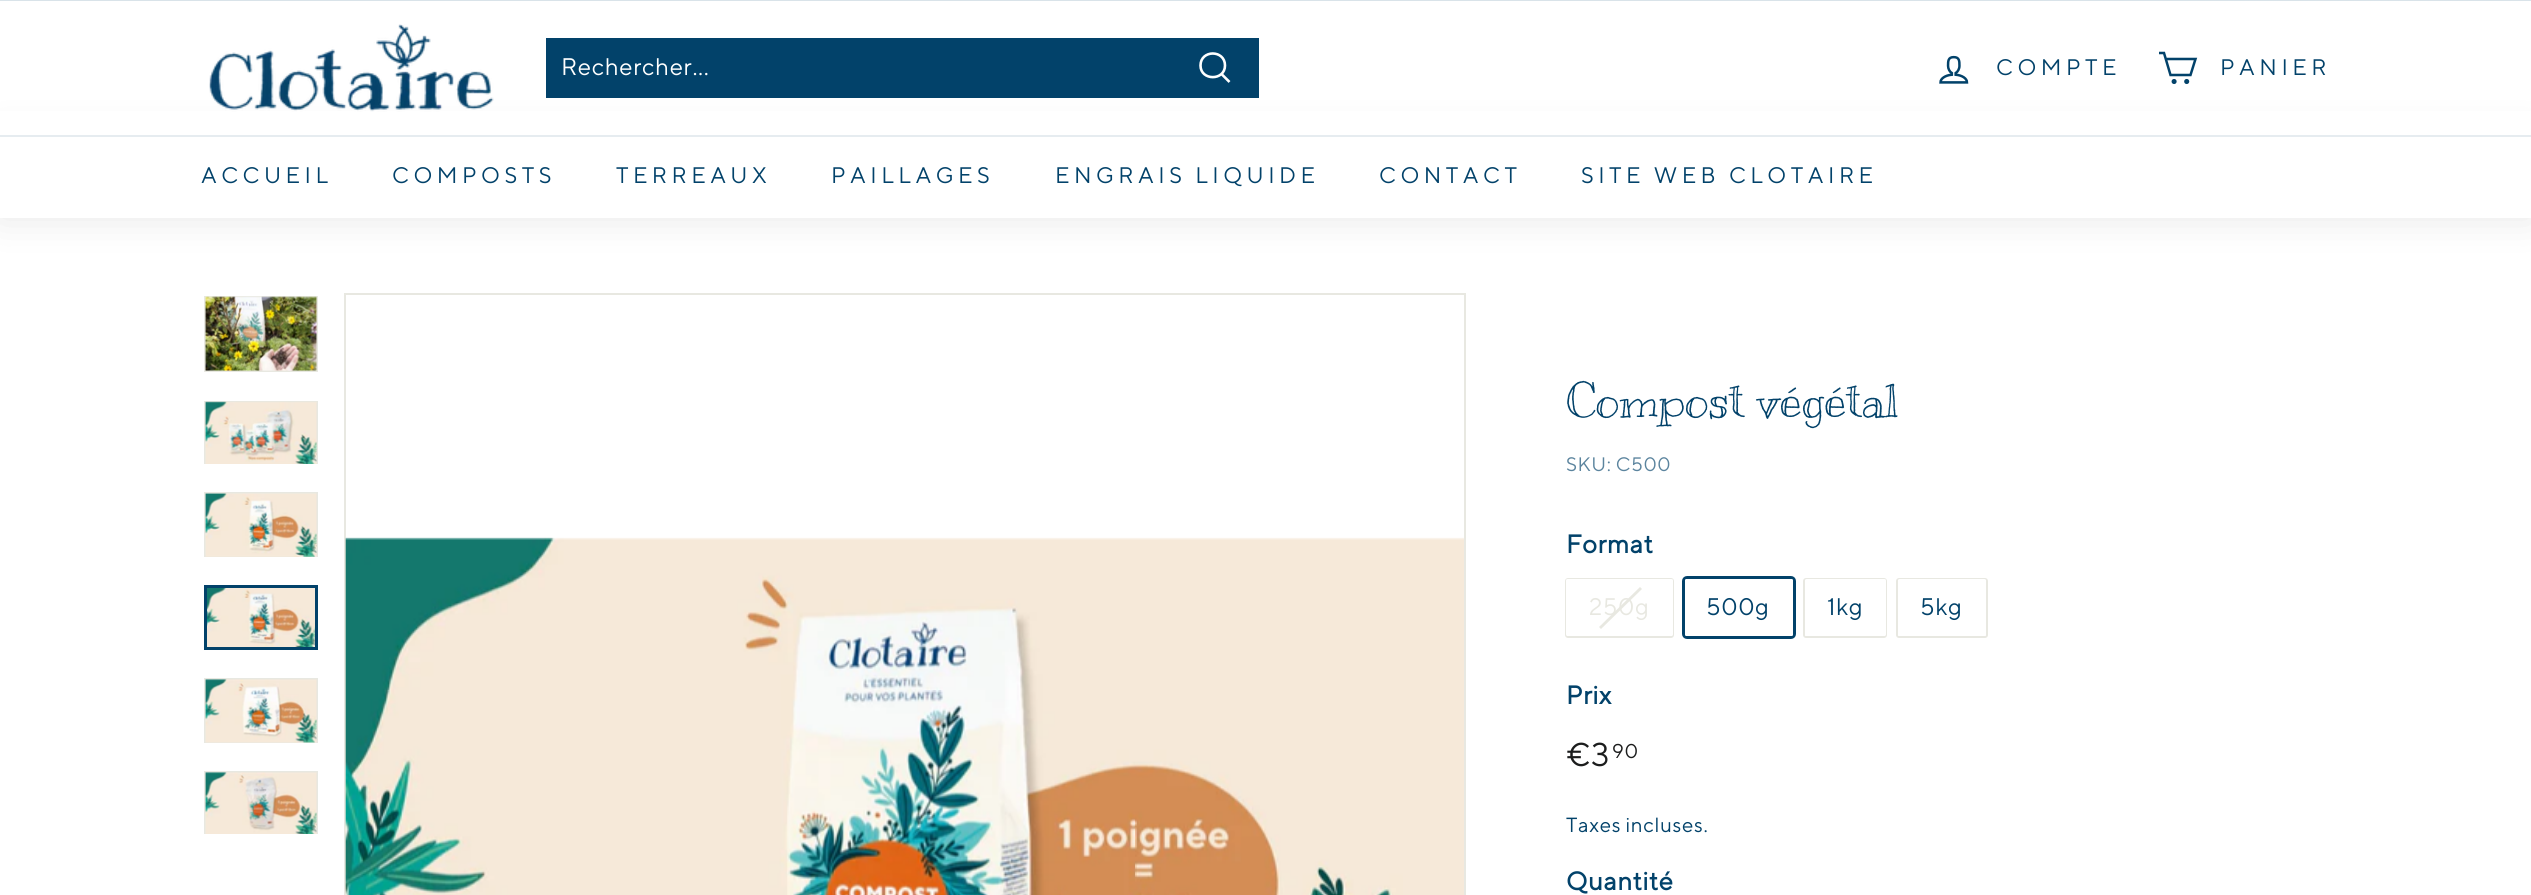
#include <cairo/cairo.h>
#include <math.h>
#include <stddef.h>

typedef struct { double x, y; const char *s; } line_t;
static cairo_t *cr;

static void rgb(unsigned color)
{
	cairo_set_source_rgb(cr, (color >> 16) / 255.0, (color >> 8 & 255) / 255.0, (color & 255) / 255.0);
}

static void tracked(double x, double y, const char *s, double letter, double word)
{
	cairo_move_to(cr, x, y);
	while (*s) {
		char ch[5] = {0};
		int n = 0;
		do ch[n++] = *s++; while ((*s & 0xC0) == 0x80);
		cairo_show_text(cr, ch);
		cairo_rel_move_to(cr, letter + word * (*ch == ' '), 0);
	}
}

static void rrect(double x, double y, double w, double h, double r)
{
	cairo_new_sub_path(cr);
	cairo_arc(cr, x + w - r, y + h - r, r, 0, M_PI / 2);
	cairo_arc(cr, x + r, y + h - r, r, M_PI / 2, M_PI);
	cairo_arc(cr, x + r, y + r, r, M_PI, 1.5 * M_PI);
	cairo_arc(cr, x + w - r, y + r, r, 1.5 * M_PI, 2 * M_PI);
	cairo_close_path(cr);
}

static void soft_shadow(double x, double y, double w, double h, double r, double blur, double alpha)
{
	cairo_push_group_with_content(cr, CAIRO_CONTENT_ALPHA);
	cairo_set_operator(cr, CAIRO_OPERATOR_SOURCE);
	for (int i = 15; i >= -15 && fmin(w, h) + blur * i / 3 > 0; i -= 2) {
		double e = blur * i / 6;
		cairo_set_source_rgba(cr, 0, 0, 0, alpha * erfc((i - 1) / 8.5) / 2);
		rrect(x - e, y - e, w + 2 * e, h + 2 * e, fmax(0, fmin(r + e + blur * .6, fmin(w, h) / 2 + e)));
		cairo_fill(cr);
	}
	cairo_pattern_t *soft = cairo_pop_group(cr);
	cairo_mask(cr, soft);
	cairo_pattern_destroy(soft);
}

static void image(const char *path, double x, double y, double w, double h)
{
	cairo_surface_t *image = cairo_image_surface_create_from_png(path);
	cairo_save(cr);
	cairo_set_source_surface(cr, image, x, y);
	cairo_rectangle(cr, x, y, w, h);
	cairo_fill(cr);
	cairo_restore(cr);
	cairo_surface_destroy(image);
}

int main(void) {
	cairo_surface_t *surface = cairo_image_surface_create(CAIRO_FORMAT_RGB24, 2531, 895);
	cr = cairo_create(surface);
	cairo_font_options_t *options = cairo_font_options_create();
	cairo_font_options_set_hint_metrics(options, CAIRO_HINT_METRICS_OFF);
	cairo_font_options_set_hint_style(options, CAIRO_HINT_STYLE_NONE);
	cairo_set_font_options(cr, options);
	cairo_set_miter_limit(cr, 4);
	rgb(0xffffff);
	cairo_paint(cr);
	rgb(0xd9e3e9);
	cairo_rectangle(cr, 0, 0, 2531, 1);
	cairo_fill(cr);
	rgb(0x000000);
	soft_shadow(0, 135, 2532, 83, 0, 19, 0.1);
	rgb(0xffffff);
	cairo_rectangle(cr, 0, 111, 2531, 24);
	cairo_fill(cr);
	image("img/1.png", 209, 24, 285, 88);
	rgb(0x02426a);
	cairo_rectangle(cr, 546, 38, 713, 60);
	cairo_fill(cr);
	cairo_new_path(cr);
	cairo_move_to(cr, 1225, 65.5);
	cairo_curve_to(cr, 1225, 81, 1200.5, 81, 1200.5, 65.5);
	cairo_curve_to(cr, 1200.5, 49.5, 1225, 49.5, 1225, 65.5);
	cairo_close_path(cr);
	cairo_move_to(cr, 1229.5, 82);
	cairo_line_to(cr, 1221.5, 74);
	rgb(0xffffff);
	cairo_set_line_width(cr, 2.6);
	cairo_stroke(cr);
	image("img/2.png", 1939, 55, 30, 29);
	cairo_new_path(cr);
	cairo_move_to(cr, 2166, 59);
	cairo_line_to(cr, 2195.5, 59);
	cairo_line_to(cr, 2190.5, 75);
	cairo_line_to(cr, 2170.5, 75);
	cairo_line_to(cr, 2164, 53);
	cairo_line_to(cr, 2159, 53);
	rgb(0x02426a);
	cairo_set_line_width(cr, 2.5);
	cairo_stroke(cr);
	cairo_arc(cr, 2174.1, 81.5, 1.3, 0, 2 * M_PI);
	cairo_stroke(cr);
	cairo_arc(cr, 2186.7, 81.5, 1.3, 0, 2 * M_PI);
	cairo_stroke(cr);
	rgb(0xffffff);
	cairo_rectangle(cr, 0, 137, 2531, 81);
	cairo_fill(cr);
	rgb(0xe6ecf0);
	cairo_rectangle(cr, 0, 135, 2531, 2);
	cairo_fill(cr);
	cairo_rectangle(cr, 205, 297, 112, 74);
	rgb(0xe8e8e1);
	cairo_set_line_width(cr, 2);
	cairo_stroke(cr);
	image("img/3.png", 205, 296, 112, 75);
	cairo_save(cr);
	cairo_rectangle(cr, 204, 401, 114, 63);
	cairo_clip(cr);
	cairo_rectangle(cr, 205, 402, 112, 64);
	cairo_stroke(cr);
	cairo_restore(cr);
	image("img/4.png", 205, 401, 112, 63);
	cairo_save(cr);
	cairo_rectangle(cr, 204, 492, 114, 65);
	cairo_clip(cr);
	cairo_rectangle(cr, 205, 493, 112, 64);
	cairo_stroke(cr);
	cairo_restore(cr);
	image("img/5.png", 205, 493, 112, 64);
	image("img/6.png", 207, 588, 108, 59);
	cairo_rectangle(cr, 205.5, 586.5, 111, 62);
	rgb(0x02426a);
	cairo_set_line_width(cr, 3);
	cairo_stroke(cr);
	cairo_save(cr);
	cairo_rectangle(cr, 204, 678, 114, 65);
	cairo_clip(cr);
	cairo_rectangle(cr, 205, 679, 112, 64);
	rgb(0xe8e8e1);
	cairo_set_line_width(cr, 2);
	cairo_stroke(cr);
	cairo_restore(cr);
	image("img/7.png", 205, 679, 112, 64);
	cairo_save(cr);
	cairo_rectangle(cr, 204, 771, 114, 63);
	cairo_clip(cr);
	cairo_rectangle(cr, 205, 772, 112, 64);
	rgb(0xe8e8e1);
	cairo_set_line_width(cr, 2);
	cairo_stroke(cr);
	cairo_restore(cr);
	image("img/8.png", 205, 772, 112, 62);
	cairo_rectangle(cr, 345, 294, 1120, 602);
	rgb(0xe8e8e1);
	cairo_set_line_width(cr, 2);
	cairo_stroke(cr);
	image("img/10.png", 345, 538, 1, 357);
	image("img/9.png", 345, 537, 1119, 358);
	rrect(1566, 579, 107, 58, 2);
	cairo_stroke(cr);
	rgb(0xffffff);
	rrect(1566, 579, 107, 57, 1.5);
	cairo_fill(cr);
	rgb(0xe8e8e1);
	cairo_new_path(cr);
	cairo_move_to(cr, 1640, 587);
	cairo_line_to(cr, 1642, 589);
	cairo_line_to(cr, 1601, 629);
	cairo_line_to(cr, 1599, 627);
	cairo_close_path(cr);
	cairo_fill(cr);
	rrect(1683.5, 577.5, 111, 60, 3.5);
	rgb(0x02426a);
	cairo_set_line_width(cr, 3);
	cairo_stroke(cr);
	rgb(0xffffff);
	rrect(1685, 579, 108, 57, 1.5);
	cairo_fill(cr);
	rrect(1804, 579, 82, 58, 2);
	rgb(0xe8e8e1);
	cairo_set_line_width(cr, 2);
	cairo_stroke(cr);
	rgb(0xffffff);
	rrect(1805, 579, 81, 57, 1.5);
	cairo_fill(cr);
	rrect(1897, 579, 90, 58, 2);
	rgb(0xe8e8e1);
	cairo_stroke(cr);
	rgb(0xffffff);
	rrect(1898, 579, 88, 57, 1.5);
	cairo_fill(cr);
	cairo_select_font_face(cr, "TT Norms", CAIRO_FONT_SLANT_NORMAL, CAIRO_FONT_WEIGHT_NORMAL);
	cairo_set_font_size(cr, 24);
	tracked(561, 75, "Rechercher...", 0.6, 0);
	cairo_set_font_size(cr, 22.5);
	rgb(0x02426a);
	{
		static const line_t items[] = {
			{1996, 75, "COMPTE"},
			{2220, 75, "PANIER"},
			{201, 183, "ACCUEIL"},
			{392, 183, "COMPOSTS"},
			{616, 183, "TERREAUX"},
			{831, 183, "PAILLAGES"},
			{1055, 183, "ENGRAIS LIQUIDE"},
			{1379, 183, "CONTACT"},
			{1581, 183, "SITE WEB CLOTAIRE"},
		};
		for (size_t i = 0; i < sizeof items / sizeof *items; i++) {
			tracked(items[i].x, items[i].y, items[i].s, 4.5, 0);
		}
	}
	cairo_select_font_face(cr, "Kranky", CAIRO_FONT_SLANT_NORMAL, CAIRO_FONT_WEIGHT_NORMAL);
	cairo_set_font_size(cr, 46);
	cairo_move_to(cr, 1566, 417);
	cairo_show_text(cr, "Compost végétal");
	cairo_select_font_face(cr, "TT Norms", CAIRO_FONT_SLANT_NORMAL, CAIRO_FONT_WEIGHT_NORMAL);
	cairo_set_font_size(cr, 19.5);
	rgb(0x5b849e);
	tracked(1566, 471, "SKU: C500", 0.6, 0);
	cairo_select_font_face(cr, "TT Norms", CAIRO_FONT_SLANT_NORMAL, CAIRO_FONT_WEIGHT_BOLD);
	cairo_set_font_size(cr, 25.5);
	rgb(0x02426a);
	tracked(1566, 553, "Format", 0.6, 0);
	cairo_select_font_face(cr, "TT Norms", CAIRO_FONT_SLANT_NORMAL, CAIRO_FONT_WEIGHT_NORMAL);
	cairo_set_font_size(cr, 24);
	rgb(0xe8e8e1);
	tracked(1589, 615, "250g", 0.6, 0);
	rgb(0x02426a);
	{
		static const line_t items[] = {
			{1706, 615, "500g"},
			{1827, 615, "1kg"},
			{1920, 615, "5kg"},
		};
		for (size_t i = 0; i < sizeof items / sizeof *items; i++) {
			tracked(items[i].x, items[i].y, items[i].s, 0.6, 0);
		}
	}
	cairo_select_font_face(cr, "TT Norms", CAIRO_FONT_SLANT_NORMAL, CAIRO_FONT_WEIGHT_BOLD);
	cairo_set_font_size(cr, 25.5);
	tracked(1566, 704, "Prix", 0.6, 0);
	cairo_select_font_face(cr, "TT Norms", CAIRO_FONT_SLANT_NORMAL, CAIRO_FONT_WEIGHT_NORMAL);
	cairo_set_font_size(cr, 33);
	rgb(0x1c1d1d);
	tracked(1566, 766, "€3", 0.6, 0);
	cairo_set_font_size(cr, 20);
	tracked(1612, 758, "90", 0.6, 0);
	cairo_set_font_size(cr, 20.5);
	rgb(0x02426a);
	tracked(1566, 832, "Taxes incluses.", 0.6, 0);
	cairo_select_font_face(cr, "TT Norms", CAIRO_FONT_SLANT_NORMAL, CAIRO_FONT_WEIGHT_BOLD);
	cairo_set_font_size(cr, 25.5);
	tracked(1566, 890, "Quantité", 0.6, 0);
	cairo_surface_write_to_png(surface, "page.png");
	cairo_font_options_destroy(options);
	cairo_destroy(cr);
	cairo_surface_destroy(surface);
	return 0;
}
